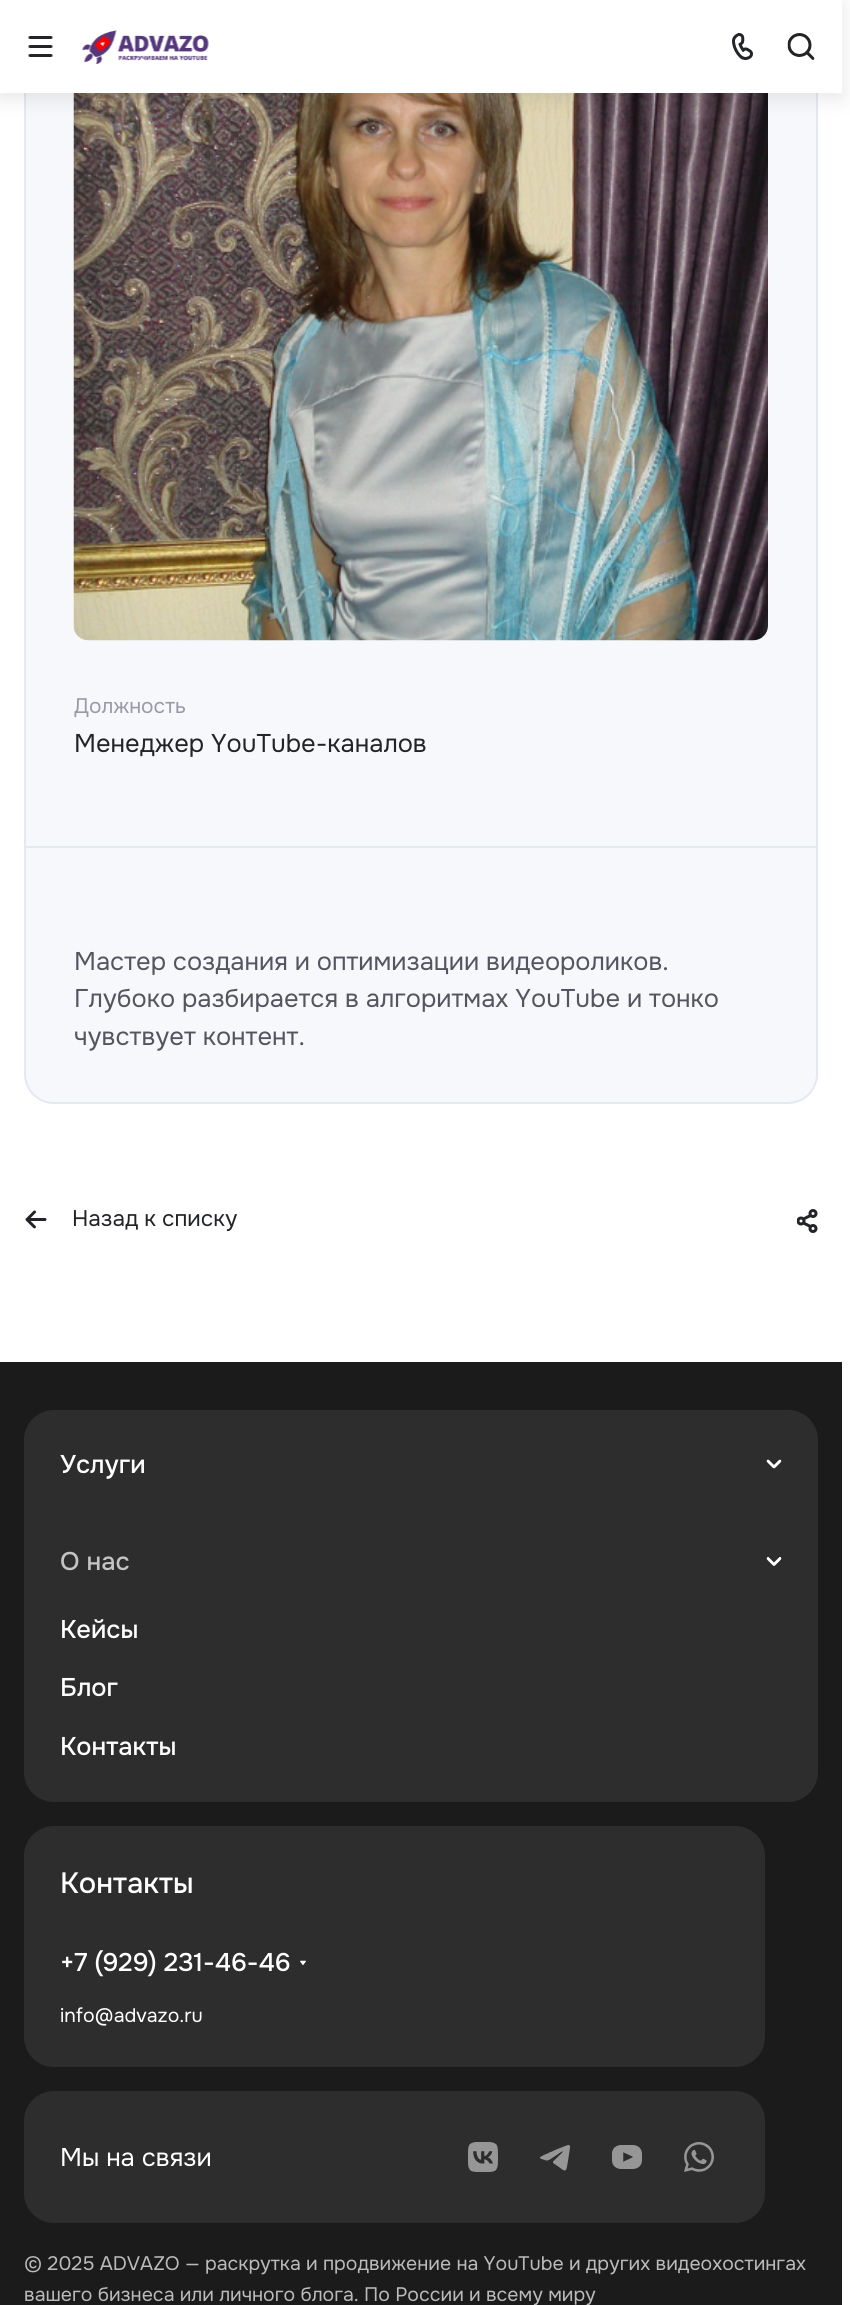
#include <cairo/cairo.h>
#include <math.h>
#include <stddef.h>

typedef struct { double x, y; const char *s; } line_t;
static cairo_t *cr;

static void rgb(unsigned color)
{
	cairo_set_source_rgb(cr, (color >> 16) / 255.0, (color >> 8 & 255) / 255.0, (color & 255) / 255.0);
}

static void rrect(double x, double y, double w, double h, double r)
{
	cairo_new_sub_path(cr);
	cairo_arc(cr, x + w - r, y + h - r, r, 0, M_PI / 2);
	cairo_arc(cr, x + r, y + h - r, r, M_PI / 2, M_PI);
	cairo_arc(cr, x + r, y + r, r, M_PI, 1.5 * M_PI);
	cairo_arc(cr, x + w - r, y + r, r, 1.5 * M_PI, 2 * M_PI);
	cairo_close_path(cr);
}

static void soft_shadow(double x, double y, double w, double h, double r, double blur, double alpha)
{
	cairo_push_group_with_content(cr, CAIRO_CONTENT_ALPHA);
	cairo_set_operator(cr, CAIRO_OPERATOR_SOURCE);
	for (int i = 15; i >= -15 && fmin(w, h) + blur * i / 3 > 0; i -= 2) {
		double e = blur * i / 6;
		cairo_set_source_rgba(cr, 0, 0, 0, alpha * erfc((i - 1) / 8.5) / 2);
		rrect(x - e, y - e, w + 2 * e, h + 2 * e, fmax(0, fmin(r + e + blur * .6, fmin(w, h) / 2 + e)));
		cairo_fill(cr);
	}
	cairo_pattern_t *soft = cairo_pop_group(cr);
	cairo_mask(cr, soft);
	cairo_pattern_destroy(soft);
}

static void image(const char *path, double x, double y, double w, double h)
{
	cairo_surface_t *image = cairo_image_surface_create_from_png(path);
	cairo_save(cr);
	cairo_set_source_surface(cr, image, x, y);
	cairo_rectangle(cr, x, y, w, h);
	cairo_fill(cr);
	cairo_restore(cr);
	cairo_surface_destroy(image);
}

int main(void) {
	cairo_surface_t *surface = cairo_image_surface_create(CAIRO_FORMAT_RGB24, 850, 2305);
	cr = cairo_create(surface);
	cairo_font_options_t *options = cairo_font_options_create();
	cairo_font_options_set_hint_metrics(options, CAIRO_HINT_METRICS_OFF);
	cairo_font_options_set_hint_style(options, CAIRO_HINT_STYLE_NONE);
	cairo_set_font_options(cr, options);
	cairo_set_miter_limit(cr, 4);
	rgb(0xffffff);
	cairo_paint(cr);
	rgb(0xf7f8fb);
	rrect(25, -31, 792, 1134, 29);
	cairo_fill_preserve(cr);
	rgb(0xe4e8f3);
	cairo_stroke(cr);
	image("img/5.png", 73, 93, 695, 548);
	rgb(0x000000);
	soft_shadow(0, 5, 842, 93, 0, 11, 0.1);
	rgb(0xffffff);
	cairo_rectangle(cr, 0, 0, 842, 93);
	cairo_fill(cr);
	image("img/1.png", 28, 36, 25, 21);
	image("img/2.png", 82, 30, 127, 34);
	image("img/3.png", 732, 33, 21, 27);
	image("img/4.png", 787, 33, 28, 27);
	rgb(0xe4e8f3);
	cairo_rectangle(cr, 26, 846, 790, 2);
	cairo_fill(cr);
	image("img/6.png", 25, 1210, 22, 19);
	image("img/7.png", 797, 1209, 21, 24);
	rgb(0x1b1b1b);
	cairo_rectangle(cr, 0, 1362, 842, 943);
	cairo_fill(cr);
	rgb(0x2d2d2d);
	rrect(24, 1410, 794, 392, 30);
	cairo_fill(cr);
	image("img/8.png", 766, 1459, 16, 10);
	image("img/9.png", 766, 1557, 16, 9);
	rrect(24, 1826, 741, 241, 30);
	cairo_fill(cr);
	image("img/10.png", 300, 1960, 6, 5);
	rrect(24, 2091, 741, 132, 30);
	cairo_fill(cr);
	image("img/11.png", 468, 2142, 30, 30);
	image("img/12.png", 540, 2145, 30, 26);
	image("img/13.png", 612, 2145, 30, 24);
	image("img/14.png", 684, 2142, 30, 30);
	cairo_select_font_face(cr, "Onest", CAIRO_FONT_SLANT_NORMAL, CAIRO_FONT_WEIGHT_NORMAL);
	cairo_set_font_size(cr, 21);
	rgb(0x9999aa);
	cairo_move_to(cr, 74, 713);
	cairo_show_text(cr, "Должность");
	cairo_set_font_size(cr, 25.5);
	rgb(0x222428);
	cairo_move_to(cr, 74, 752);
	cairo_show_text(cr, "Менеджер YouTube-каналов");
	rgb(0x555560);
	{
		static const line_t items[] = {
			{74, 970, "Мастер создания и оптимизации видеороликов."},
			{74, 1007, "Глубоко разбирается в алгоритмах YouTube и тонко"},
			{74, 1045, "чувствует контент."},
		};
		for (size_t i = 0; i < sizeof items / sizeof *items; i++) {
			cairo_move_to(cr, items[i].x, items[i].y);
			cairo_show_text(cr, items[i].s);
		}
	}
	cairo_set_font_size(cr, 22.5);
	rgb(0x222428);
	cairo_move_to(cr, 72, 1226);
	cairo_show_text(cr, "Назад к списку");
	cairo_select_font_face(cr, "Onest Medium", CAIRO_FONT_SLANT_NORMAL, CAIRO_FONT_WEIGHT_NORMAL);
	cairo_set_font_size(cr, 25.5);
	rgb(0xffffff);
	cairo_move_to(cr, 60, 1473);
	cairo_show_text(cr, "Услуги");
	rgb(0xc4c4c4);
	cairo_move_to(cr, 60, 1570);
	cairo_show_text(cr, "О нас");
	rgb(0xffffff);
	{
		static const line_t items[] = {
			{60, 1638, "Кейсы"},
			{60, 1696, "Блог"},
			{60, 1755, "Контакты"},
		};
		for (size_t i = 0; i < sizeof items / sizeof *items; i++) {
			cairo_move_to(cr, items[i].x, items[i].y);
			cairo_show_text(cr, items[i].s);
		}
	}
	cairo_set_font_size(cr, 29.25);
	cairo_move_to(cr, 60, 1893);
	cairo_show_text(cr, "Контакты");
	cairo_set_font_size(cr, 25.5);
	cairo_move_to(cr, 60, 1971);
	cairo_show_text(cr, "+7 (929) 231-46-46");
	cairo_select_font_face(cr, "Onest", CAIRO_FONT_SLANT_NORMAL, CAIRO_FONT_WEIGHT_NORMAL);
	cairo_set_font_size(cr, 19.5);
	cairo_move_to(cr, 60, 2022);
	cairo_show_text(cr, "info@advazo.ru");
	cairo_set_font_size(cr, 25.5);
	cairo_move_to(cr, 60, 2166);
	cairo_show_text(cr, "Мы на связи");
	cairo_set_font_size(cr, 19.5);
	rgb(0xbbbbbb);
	cairo_move_to(cr, 24, 2270);
	cairo_show_text(cr, "© 2025 ADVAZO — раскрутка и продвижение на YouTube и других видеохостингах");
	cairo_move_to(cr, 24, 2301);
	cairo_show_text(cr, "вашего бизнеса или личного блога. По России и всему миру");
	cairo_surface_write_to_png(surface, "page.png");
	cairo_font_options_destroy(options);
	cairo_destroy(cr);
	cairo_surface_destroy(surface);
	return 0;
}
